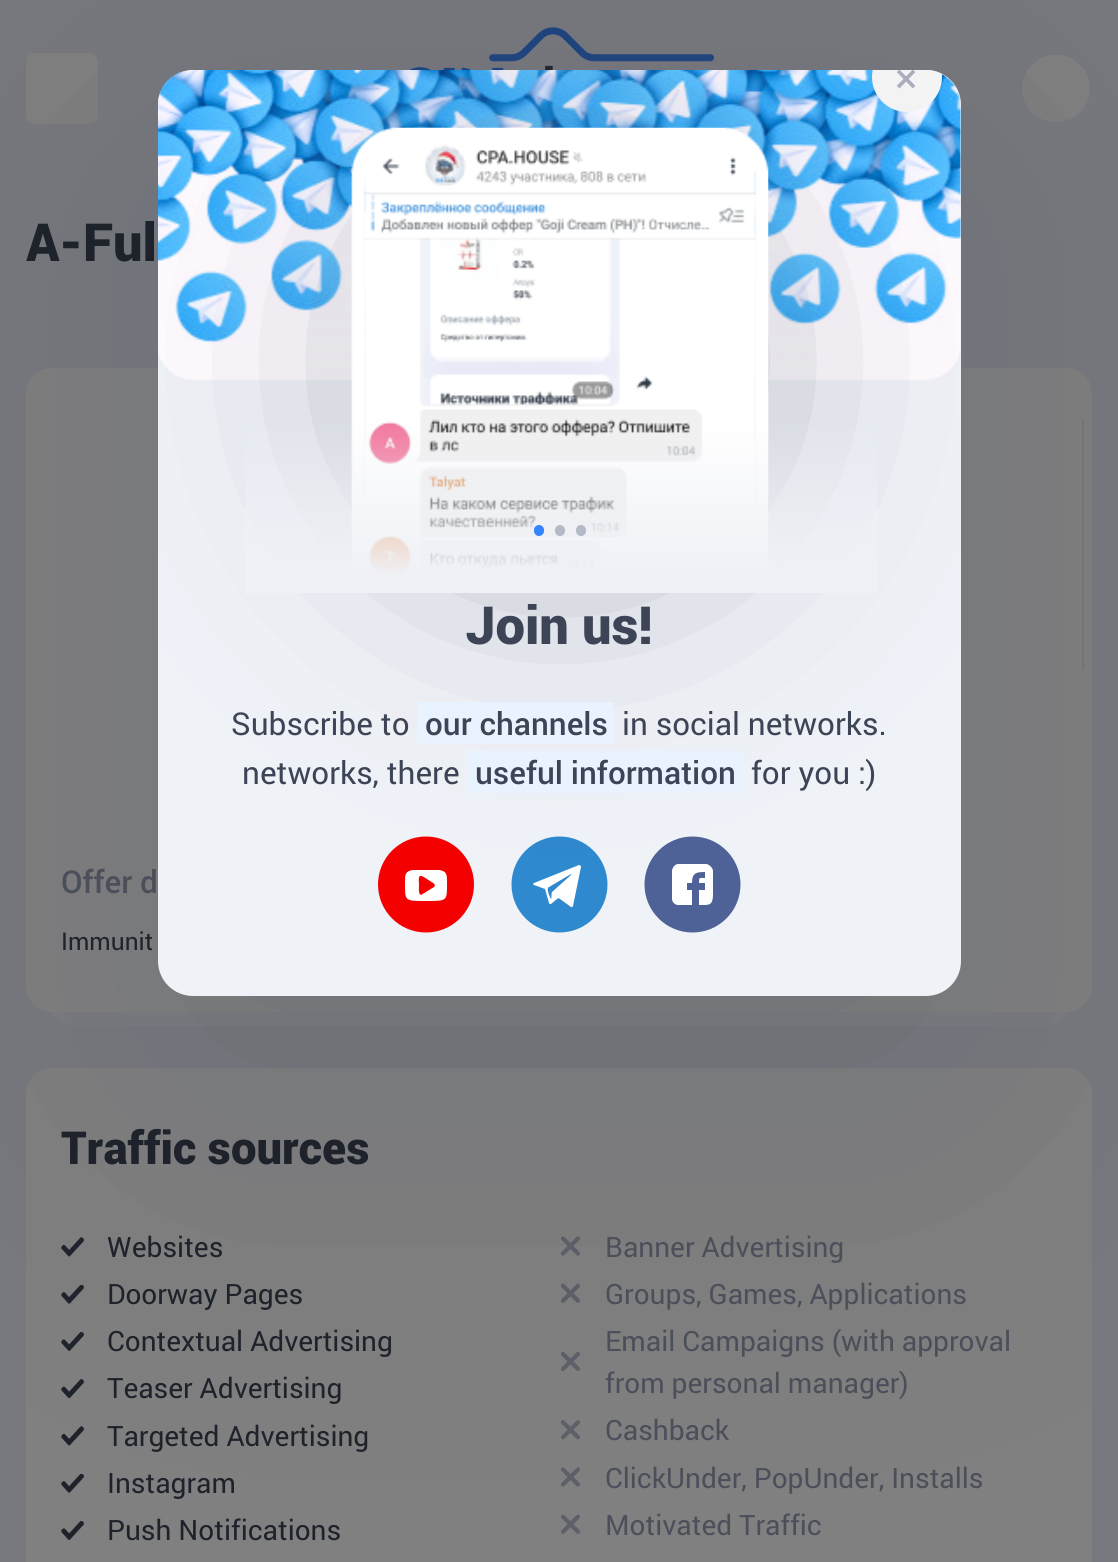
#include <cairo/cairo.h>
#include <math.h>
#include <stddef.h>

typedef struct { double x, y; const char *s; } line_t;
static cairo_t *cr;

static void rgb(unsigned color)
{
	cairo_set_source_rgb(cr, (color >> 16) / 255.0, (color >> 8 & 255) / 255.0, (color & 255) / 255.0);
}

static void rrect(double x, double y, double w, double h, double r)
{
	cairo_new_sub_path(cr);
	cairo_arc(cr, x + w - r, y + h - r, r, 0, M_PI / 2);
	cairo_arc(cr, x + r, y + h - r, r, M_PI / 2, M_PI);
	cairo_arc(cr, x + r, y + r, r, M_PI, 1.5 * M_PI);
	cairo_arc(cr, x + w - r, y + r, r, 1.5 * M_PI, 2 * M_PI);
	cairo_close_path(cr);
}

static void soft_shadow(double x, double y, double w, double h, double r, double blur, double alpha)
{
	cairo_push_group_with_content(cr, CAIRO_CONTENT_ALPHA);
	cairo_set_operator(cr, CAIRO_OPERATOR_SOURCE);
	for (int i = 15; i >= -15 && fmin(w, h) + blur * i / 3 > 0; i -= 2) {
		double e = blur * i / 6;
		cairo_set_source_rgba(cr, 0, 0, 0, alpha * erfc((i - 1) / 8.5) / 2);
		rrect(x - e, y - e, w + 2 * e, h + 2 * e, fmax(0, fmin(r + e + blur * .6, fmin(w, h) / 2 + e)));
		cairo_fill(cr);
	}
	cairo_pattern_t *soft = cairo_pop_group(cr);
	cairo_mask(cr, soft);
	cairo_pattern_destroy(soft);
}

static void image(const char *path, double x, double y, double w, double h)
{
	cairo_surface_t *image = cairo_image_surface_create_from_png(path);
	cairo_save(cr);
	cairo_set_source_surface(cr, image, x, y);
	cairo_rectangle(cr, x, y, w, h);
	cairo_fill(cr);
	cairo_restore(cr);
	cairo_surface_destroy(image);
}

int main(void) {
	cairo_surface_t *surface = cairo_image_surface_create(CAIRO_FORMAT_RGB24, 1118, 1562);
	cr = cairo_create(surface);
	cairo_font_options_t *options = cairo_font_options_create();
	cairo_font_options_set_hint_metrics(options, CAIRO_HINT_METRICS_OFF);
	cairo_font_options_set_hint_style(options, CAIRO_HINT_STYLE_NONE);
	cairo_set_font_options(cr, options);
	cairo_set_miter_limit(cr, 4);
	cairo_pattern_t *gradient;
	rgb(0x77797e);
	cairo_paint(cr);
	image("img/3.png", 409, 27, 305, 43);
	rgb(0x808080);
	rrect(26, 53, 72, 71, 9);
	cairo_fill(cr);
	rrect(1021, 54, 70, 69, 34.5);
	cairo_fill_preserve(cr);
	rgb(0x75797e);
	cairo_stroke(cr);
	cairo_set_source_rgba(cr, 0.502, 0.502, 0.502, 0.4);
	rrect(47, 973, 1024, 53, 26.5);
	cairo_fill(cr);
	rgb(0x808080);
	rrect(26, 368, 1066, 644, 26);
	cairo_fill(cr);
	rgb(0x74777c);
	cairo_rectangle(cr, 1082, 420, 2, 250);
	cairo_fill(cr);
	rgb(0x808080);
	rrect(26, 1068, 1066, 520, 26);
	cairo_fill(cr);
	image("img/4.png", 61, 1237, 23, 20);
	image("img/5.png", 61, 1285, 23, 19);
	image("img/6.png", 61, 1332, 23, 19);
	image("img/7.png", 61, 1379, 23, 19);
	image("img/4.png", 61, 1426, 23, 20);
	image("img/5.png", 61, 1474, 23, 19);
	image("img/6.png", 61, 1521, 23, 19);
	image("img/8.png", 560, 1236, 21, 20);
	image("img/9.png", 560, 1283, 21, 20);
	image("img/10.png", 561, 1352, 19, 19);
	image("img/11.png", 560, 1420, 21, 20);
	image("img/8.png", 560, 1467, 21, 20);
	image("img/9.png", 560, 1514, 21, 20);
	rgb(0x505562);
	soft_shadow(140, 140, 838, 961, 53, 175, 0.3);
	rgb(0xeff2f7);
	rrect(158, 70, 803, 926, 35);
	cairo_fill(cr);
	image("img/1.png", 158, 70, 803, 310);
	cairo_save(cr);
	rrect(158, 70, 803, 926, 35);
	cairo_clip(cr);
	rgb(0xf5f5f5);
	cairo_arc(cr, 907, 77, 35, 0, 2 * M_PI);
	cairo_fill(cr);
	cairo_restore(cr);
	rgb(0xf40000);
	cairo_arc(cr, 426, 884.5, 48, 0, 2 * M_PI);
	cairo_fill(cr);
	rgb(0xffffff);
	cairo_new_path(cr);
	cairo_move_to(cr, 447, 882);
	cairo_curve_to(cr, 447, 875, 447, 871, 439, 870);
	cairo_line_to(cr, 413, 870);
	cairo_curve_to(cr, 405, 871, 405, 875, 405, 882);
	cairo_curve_to(cr, 405, 901, 404, 901, 426, 901);
	cairo_curve_to(cr, 448, 901, 447, 901, 447, 882);
	cairo_close_path(cr);
	cairo_move_to(cr, 434, 887);
	cairo_line_to(cr, 421, 895);
	cairo_curve_to(cr, 418, 894, 419, 887, 419, 885);
	cairo_curve_to(cr, 419, 883, 418, 877, 420, 876);
	cairo_curve_to(cr, 422, 875, 428, 880, 430, 881);
	cairo_curve_to(cr, 431, 882, 437, 884, 434, 887);
	cairo_close_path(cr);
	cairo_fill(cr);
	rgb(0x2f89ce);
	cairo_arc(cr, 559.5, 884.5, 48, 0, 2 * M_PI);
	cairo_fill(cr);
	rgb(0xffffff);
	cairo_new_path(cr);
	cairo_move_to(cr, 534, 885);
	cairo_line_to(cr, 545, 889);
	cairo_line_to(cr, 549, 903);
	cairo_curve_to(cr, 549, 904, 550, 904, 551, 904);
	cairo_line_to(cr, 557, 899);
	cairo_curve_to(cr, 558, 898, 559, 898, 560, 899);
	cairo_line_to(cr, 571, 907);
	cairo_curve_to(cr, 572, 907, 573, 907, 573, 906);
	cairo_line_to(cr, 581, 867);
	cairo_curve_to(cr, 581, 866, 580, 865, 579, 865);
	cairo_line_to(cr, 534, 883);
	cairo_curve_to(cr, 533, 883, 533, 885, 534, 885);
	cairo_close_path(cr);
	cairo_move_to(cr, 549, 887);
	cairo_line_to(cr, 571, 874);
	cairo_line_to(cr, 571, 875);
	cairo_line_to(cr, 552, 892);
	cairo_curve_to(cr, 551, 894, 552, 898, 551, 899);
	cairo_line_to(cr, 550, 897);
	cairo_curve_to(cr, 549, 895, 546, 888, 549, 887);
	cairo_close_path(cr);
	cairo_fill(cr);
	rgb(0x4e6297);
	cairo_arc(cr, 692.5, 884.5, 48, 0, 2 * M_PI);
	cairo_fill(cr);
	rgb(0xffffff);
	cairo_new_path(cr);
	cairo_move_to(cr, 713, 871);
	cairo_curve_to(cr, 713, 868, 709, 864, 706, 864);
	cairo_line_to(cr, 678, 864);
	cairo_curve_to(cr, 675, 864, 672, 868, 672, 871);
	cairo_line_to(cr, 672, 899);
	cairo_curve_to(cr, 672, 902, 675, 905, 678, 905);
	cairo_line_to(cr, 692, 905);
	cairo_line_to(cr, 692, 890);
	cairo_line_to(cr, 687, 890);
	cairo_line_to(cr, 687, 883);
	cairo_line_to(cr, 692, 883);
	cairo_curve_to(cr, 692, 873, 696, 872, 705, 872);
	cairo_line_to(cr, 705, 878);
	cairo_curve_to(cr, 699, 878, 699, 877, 699, 883);
	cairo_line_to(cr, 705, 883);
	cairo_line_to(cr, 705, 890);
	cairo_line_to(cr, 699, 890);
	cairo_line_to(cr, 699, 905);
	cairo_curve_to(cr, 709, 905, 713, 906, 713, 894);
	cairo_close_path(cr);
	cairo_fill(cr);
	cairo_save(cr);
	rrect(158, 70, 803, 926, 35);
	cairo_clip(cr);
	rgb(0x73778a);
	soft_shadow(422, 222, 278, 279, 139, 140, 0.7);
	cairo_restore(cr);
	image("img/2.png", 351, 127, 418, 448);
	gradient = cairo_pattern_create_linear(559, 418, 559, 593);
	cairo_pattern_add_color_stop_rgba(gradient, 0, 0.937, 0.945, 0.965, 0);
	cairo_pattern_add_color_stop_rgba(gradient, 0.9, 0.937, 0.945, 0.965, 1);
	cairo_set_source(cr, gradient);
	cairo_pattern_destroy(gradient);
	cairo_rectangle(cr, 245, 422, 632, 171);
	cairo_fill(cr);
	rgb(0x3485ff);
	rrect(534, 525, 10, 11, 5);
	cairo_fill(cr);
	rgb(0xb3b9c6);
	rrect(555, 525, 10, 11, 5);
	cairo_fill(cr);
	rrect(576, 525, 10, 11, 5);
	cairo_fill(cr);
	rgb(0xe9f2ff);
	cairo_rectangle(cr, 418, 702, 196, 42);
	cairo_fill(cr);
	cairo_rectangle(cr, 467, 751, 275, 42);
	cairo_fill(cr);
	cairo_save(cr);
	rrect(158, 70, 803, 926, 35);
	cairo_clip(cr);
	cairo_select_font_face(cr, "Roboto", CAIRO_FONT_SLANT_NORMAL, CAIRO_FONT_WEIGHT_NORMAL);
	cairo_set_font_size(cr, 42);
	rgb(0xa9adbd);
	cairo_move_to(cr, 895, 93);
	cairo_show_text(cr, "×");
	cairo_restore(cr);
	cairo_select_font_face(cr, "Roboto Black", CAIRO_FONT_SLANT_NORMAL, CAIRO_FONT_WEIGHT_NORMAL);
	cairo_set_font_size(cr, 52.5);
	rgb(0x3c4456);
	cairo_move_to(cr, 465, 644);
	cairo_show_text(cr, "Join us!");
	cairo_select_font_face(cr, "Roboto", CAIRO_FONT_SLANT_NORMAL, CAIRO_FONT_WEIGHT_NORMAL);
	cairo_set_font_size(cr, 31.5);
	cairo_move_to(cr, 231, 735);
	cairo_show_text(cr, "Subscribe to");
	cairo_select_font_face(cr, "Roboto Medium", CAIRO_FONT_SLANT_NORMAL, CAIRO_FONT_WEIGHT_NORMAL);
	cairo_move_to(cr, 425, 735);
	cairo_show_text(cr, "our channels");
	cairo_select_font_face(cr, "Roboto", CAIRO_FONT_SLANT_NORMAL, CAIRO_FONT_WEIGHT_NORMAL);
	cairo_move_to(cr, 622, 735);
	cairo_show_text(cr, "in social networks.");
	cairo_move_to(cr, 242, 784);
	cairo_show_text(cr, "networks, there");
	cairo_select_font_face(cr, "Roboto Medium", CAIRO_FONT_SLANT_NORMAL, CAIRO_FONT_WEIGHT_NORMAL);
	cairo_move_to(cr, 475, 784);
	cairo_show_text(cr, "useful information");
	cairo_select_font_face(cr, "Roboto", CAIRO_FONT_SLANT_NORMAL, CAIRO_FONT_WEIGHT_NORMAL);
	cairo_move_to(cr, 751, 784);
	cairo_show_text(cr, "for you :)");
	cairo_select_font_face(cr, "Roboto Black", CAIRO_FONT_SLANT_NORMAL, CAIRO_FONT_WEIGHT_NORMAL);
	cairo_set_font_size(cr, 52.5);
	rgb(0x1e222b);
	cairo_move_to(cr, 26, 261);
	cairo_show_text(cr, "A-Ful");
	cairo_select_font_face(cr, "Roboto Medium", CAIRO_FONT_SLANT_NORMAL, CAIRO_FONT_WEIGHT_NORMAL);
	cairo_set_font_size(cr, 31.5);
	rgb(0x4b4f5a);
	cairo_move_to(cr, 61, 893);
	cairo_show_text(cr, "Offer d");
	cairo_select_font_face(cr, "Roboto", CAIRO_FONT_SLANT_NORMAL, CAIRO_FONT_WEIGHT_NORMAL);
	cairo_set_font_size(cr, 24.5);
	rgb(0x1e222b);
	cairo_move_to(cr, 61, 950);
	cairo_show_text(cr, "Immunit");
	cairo_select_font_face(cr, "Roboto Black", CAIRO_FONT_SLANT_NORMAL, CAIRO_FONT_WEIGHT_NORMAL);
	cairo_set_font_size(cr, 45.5);
	cairo_move_to(cr, 61, 1164);
	cairo_show_text(cr, "Traffic sources");
	cairo_select_font_face(cr, "Roboto", CAIRO_FONT_SLANT_NORMAL, CAIRO_FONT_WEIGHT_NORMAL);
	cairo_set_font_size(cr, 28);
	{
		static const line_t items[] = {
			{107, 1257, "Websites"},
			{107, 1304, "Doorway Pages"},
			{107, 1351, "Contextual Advertising"},
			{107, 1398, "Teaser Advertising"},
			{107, 1446, "Targeted Advertising"},
			{107, 1493, "Instagram"},
			{107, 1540, "Push Notifications"},
		};
		for (size_t i = 0; i < sizeof items / sizeof *items; i++) {
			cairo_move_to(cr, items[i].x, items[i].y);
			cairo_show_text(cr, items[i].s);
		}
	}
	rgb(0x4b4f5a);
	{
		static const line_t items[] = {
			{605, 1257, "Banner Advertising"},
			{605, 1304, "Groups, Games, Applications"},
			{605, 1351, "Email Campaigns (with approval"},
			{605, 1393, "from personal manager)"},
			{605, 1440, "Cashback"},
			{605, 1488, "ClickUnder, PopUnder, Installs"},
			{605, 1535, "Motivated Traffic"},
		};
		for (size_t i = 0; i < sizeof items / sizeof *items; i++) {
			cairo_move_to(cr, items[i].x, items[i].y);
			cairo_show_text(cr, items[i].s);
		}
	}
	cairo_surface_write_to_png(surface, "page.png");
	cairo_font_options_destroy(options);
	cairo_destroy(cr);
	cairo_surface_destroy(surface);
	return 0;
}
